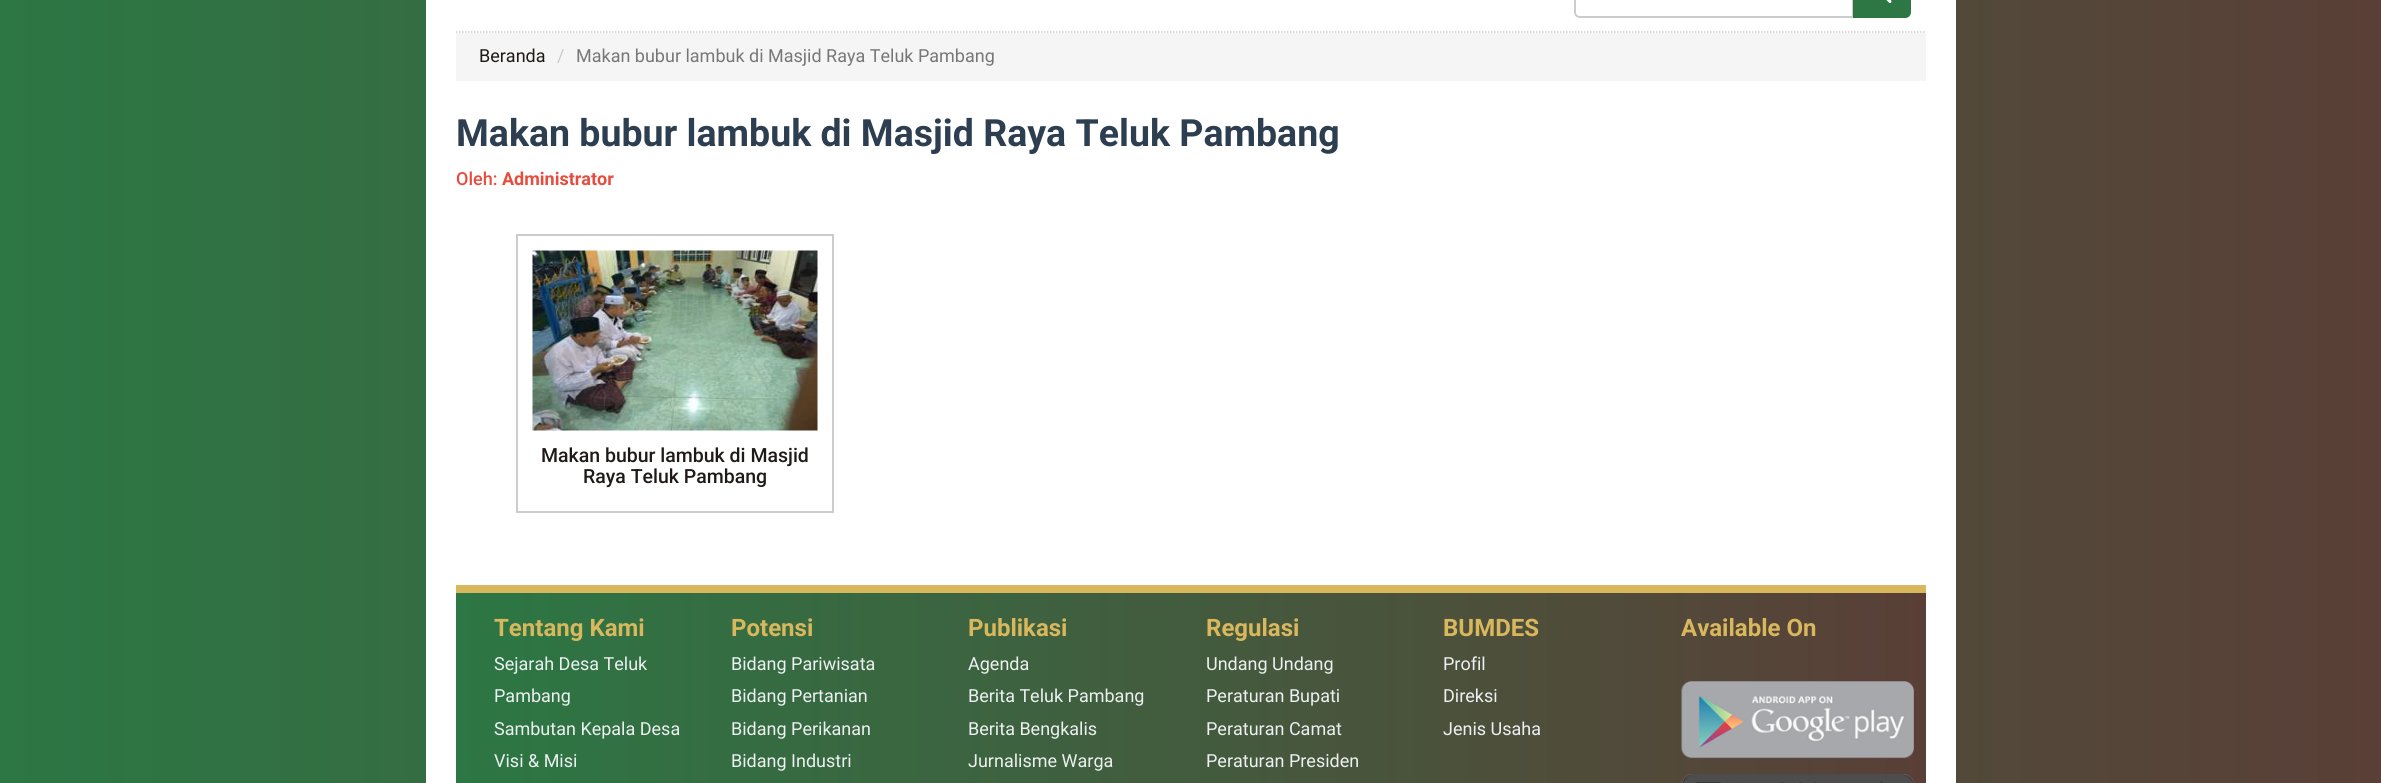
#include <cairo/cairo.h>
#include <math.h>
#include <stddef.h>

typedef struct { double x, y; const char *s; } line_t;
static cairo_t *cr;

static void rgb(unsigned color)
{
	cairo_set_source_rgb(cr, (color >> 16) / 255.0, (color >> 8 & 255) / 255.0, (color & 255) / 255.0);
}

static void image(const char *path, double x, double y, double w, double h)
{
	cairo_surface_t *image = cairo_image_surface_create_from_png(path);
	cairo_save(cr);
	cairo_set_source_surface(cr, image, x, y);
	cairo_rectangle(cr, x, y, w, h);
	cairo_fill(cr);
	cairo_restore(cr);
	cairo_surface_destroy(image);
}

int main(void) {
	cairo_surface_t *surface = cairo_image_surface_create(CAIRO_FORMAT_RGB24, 2381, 783);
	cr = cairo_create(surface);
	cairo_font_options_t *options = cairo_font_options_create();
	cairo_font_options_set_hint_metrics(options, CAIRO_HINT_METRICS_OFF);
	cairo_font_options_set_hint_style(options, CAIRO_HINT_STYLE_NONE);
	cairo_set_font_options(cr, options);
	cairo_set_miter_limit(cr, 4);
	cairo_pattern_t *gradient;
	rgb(0xffffff);
	cairo_paint(cr);
	gradient = cairo_pattern_create_linear(0, 321, 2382, 321);
	cairo_pattern_add_color_stop_rgba(gradient, 0, 0.173, 0.467, 0.267, 1);
	cairo_pattern_add_color_stop_rgba(gradient, 1, 0.353, 0.247, 0.216, 1);
	cairo_set_source(cr, gradient);
	cairo_pattern_destroy(gradient);
	cairo_rectangle(cr, 0, 0, 2381, 783);
	cairo_fill(cr);
	rgb(0xffffff);
	cairo_rectangle(cr, 426, 0, 1530, 783);
	cairo_fill(cr);
	cairo_new_path(cr);
	cairo_move_to(cr, 456, 32);
	cairo_line_to(cr, 1926, 32);
	rgb(0xcccccc);
	cairo_set_line_width(cr, 1.5);
	cairo_set_dash(cr, (double[]){1.5, 1.5}, 2, 0);
	cairo_stroke(cr);
	cairo_new_path(cr);
	cairo_move_to(cr, 1580, -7);
	cairo_line_to(cr, 1853, -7);
	cairo_line_to(cr, 1853, 17);
	cairo_line_to(cr, 1580, 17);
	cairo_curve_to(cr, 1577, 17, 1575, 15, 1575, 12);
	cairo_line_to(cr, 1575, -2);
	cairo_curve_to(cr, 1575, -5, 1577, -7, 1580, -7);
	cairo_close_path(cr);
	cairo_set_line_width(cr, 2);
	cairo_set_dash(cr, NULL, 0, 0);
	cairo_stroke(cr);
	rgb(0x2c7744);
	cairo_new_path(cr);
	cairo_move_to(cr, 1854, -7);
	cairo_line_to(cr, 1905, -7);
	cairo_curve_to(cr, 1908, -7, 1910, -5, 1910, -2);
	cairo_line_to(cr, 1910, 12);
	cairo_curve_to(cr, 1910, 15, 1908, 17, 1905, 17);
	cairo_line_to(cr, 1854, 17);
	cairo_close_path(cr);
	cairo_fill_preserve(cr);
	cairo_stroke(cr);
	image("img/1.png", 1886, 0, 6, 3);
	rgb(0xf5f5f5);
	cairo_rectangle(cr, 456, 33, 1470, 48);
	cairo_fill(cr);
	cairo_rectangle(cr, 517, 235, 316, 277);
	rgb(0xcccccc);
	cairo_stroke(cr);
	image("img/2.png", 532, 250, 286, 181);
	gradient = cairo_pattern_create_linear(456, 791, 1926, 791);
	cairo_pattern_add_color_stop_rgba(gradient, 0, 0.173, 0.467, 0.267, 1);
	cairo_pattern_add_color_stop_rgba(gradient, 1, 0.353, 0.247, 0.216, 1);
	cairo_set_source(cr, gradient);
	cairo_pattern_destroy(gradient);
	cairo_rectangle(cr, 456, 593, 1470, 190);
	cairo_fill(cr);
	rgb(0xd9b75d);
	cairo_rectangle(cr, 456, 585, 1470, 8);
	cairo_fill(cr);
	image("img/3.png", 1681, 681, 233, 78);
	image("img/4.png", 1681, 774, 233, 9);
	cairo_select_font_face(cr, "Roboto", CAIRO_FONT_SLANT_NORMAL, CAIRO_FONT_WEIGHT_NORMAL);
	cairo_set_font_size(cr, 18);
	rgb(0x1f1a17);
	cairo_move_to(cr, 479, 62);
	cairo_show_text(cr, "Beranda");
	rgb(0xcccccc);
	cairo_move_to(cr, 557, 62);
	cairo_show_text(cr, "/");
	rgb(0x777777);
	cairo_move_to(cr, 576, 62);
	cairo_show_text(cr, "Makan bubur lambuk di Masjid Raya Teluk Pambang");
	cairo_select_font_face(cr, "Roboto", CAIRO_FONT_SLANT_NORMAL, CAIRO_FONT_WEIGHT_BOLD);
	cairo_set_font_size(cr, 37.5);
	rgb(0x2c3e50);
	cairo_move_to(cr, 456, 146);
	cairo_show_text(cr, "Makan bubur lambuk di Masjid Raya Teluk Pambang");
	cairo_select_font_face(cr, "Roboto Medium", CAIRO_FONT_SLANT_NORMAL, CAIRO_FONT_WEIGHT_NORMAL);
	cairo_set_font_size(cr, 18);
	rgb(0xe74c3c);
	cairo_move_to(cr, 456, 185);
	cairo_show_text(cr, "Oleh:");
	cairo_select_font_face(cr, "Roboto", CAIRO_FONT_SLANT_NORMAL, CAIRO_FONT_WEIGHT_BOLD);
	cairo_move_to(cr, 502, 185);
	cairo_show_text(cr, "Administrator");
	cairo_select_font_face(cr, "Roboto Medium", CAIRO_FONT_SLANT_NORMAL, CAIRO_FONT_WEIGHT_NORMAL);
	cairo_set_font_size(cr, 19.5);
	rgb(0x1f1a17);
	cairo_move_to(cr, 541, 462);
	cairo_show_text(cr, "Makan bubur lambuk di Masjid");
	cairo_move_to(cr, 583, 483);
	cairo_show_text(cr, "Raya Teluk Pambang");
	cairo_select_font_face(cr, "Roboto", CAIRO_FONT_SLANT_NORMAL, CAIRO_FONT_WEIGHT_BOLD);
	cairo_set_font_size(cr, 24);
	rgb(0xd9b75d);
	cairo_move_to(cr, 494, 636);
	cairo_show_text(cr, "Tentang Kami");
	cairo_select_font_face(cr, "Roboto", CAIRO_FONT_SLANT_NORMAL, CAIRO_FONT_WEIGHT_NORMAL);
	cairo_set_font_size(cr, 18);
	rgb(0xecf0f1);
	{
		static const line_t items[] = {
			{494, 670, "Sejarah Desa Teluk"},
			{494, 702, "Pambang"},
			{494, 735, "Sambutan Kepala Desa"},
			{494, 767, "Visi & Misi"},
		};
		for (size_t i = 0; i < sizeof items / sizeof *items; i++) {
			cairo_move_to(cr, items[i].x, items[i].y);
			cairo_show_text(cr, items[i].s);
		}
	}
	cairo_select_font_face(cr, "Roboto", CAIRO_FONT_SLANT_NORMAL, CAIRO_FONT_WEIGHT_BOLD);
	cairo_set_font_size(cr, 24);
	rgb(0xd9b75d);
	cairo_move_to(cr, 731, 636);
	cairo_show_text(cr, "Potensi");
	cairo_select_font_face(cr, "Roboto", CAIRO_FONT_SLANT_NORMAL, CAIRO_FONT_WEIGHT_NORMAL);
	cairo_set_font_size(cr, 18);
	rgb(0xecf0f1);
	{
		static const line_t items[] = {
			{731, 670, "Bidang Pariwisata"},
			{731, 702, "Bidang Pertanian"},
			{731, 735, "Bidang Perikanan"},
			{731, 767, "Bidang Industri"},
		};
		for (size_t i = 0; i < sizeof items / sizeof *items; i++) {
			cairo_move_to(cr, items[i].x, items[i].y);
			cairo_show_text(cr, items[i].s);
		}
	}
	cairo_select_font_face(cr, "Roboto", CAIRO_FONT_SLANT_NORMAL, CAIRO_FONT_WEIGHT_BOLD);
	cairo_set_font_size(cr, 24);
	rgb(0xd9b75d);
	cairo_move_to(cr, 968, 636);
	cairo_show_text(cr, "Publikasi");
	cairo_select_font_face(cr, "Roboto", CAIRO_FONT_SLANT_NORMAL, CAIRO_FONT_WEIGHT_NORMAL);
	cairo_set_font_size(cr, 18);
	rgb(0xecf0f1);
	{
		static const line_t items[] = {
			{968, 670, "Agenda"},
			{968, 702, "Berita Teluk Pambang"},
			{968, 735, "Berita Bengkalis"},
			{968, 767, "Jurnalisme Warga"},
		};
		for (size_t i = 0; i < sizeof items / sizeof *items; i++) {
			cairo_move_to(cr, items[i].x, items[i].y);
			cairo_show_text(cr, items[i].s);
		}
	}
	cairo_select_font_face(cr, "Roboto", CAIRO_FONT_SLANT_NORMAL, CAIRO_FONT_WEIGHT_BOLD);
	cairo_set_font_size(cr, 24);
	rgb(0xd9b75d);
	cairo_move_to(cr, 1206, 636);
	cairo_show_text(cr, "Regulasi");
	cairo_select_font_face(cr, "Roboto", CAIRO_FONT_SLANT_NORMAL, CAIRO_FONT_WEIGHT_NORMAL);
	cairo_set_font_size(cr, 18);
	rgb(0xecf0f1);
	{
		static const line_t items[] = {
			{1206, 670, "Undang Undang"},
			{1206, 702, "Peraturan Bupati"},
			{1206, 735, "Peraturan Camat"},
			{1206, 767, "Peraturan Presiden"},
		};
		for (size_t i = 0; i < sizeof items / sizeof *items; i++) {
			cairo_move_to(cr, items[i].x, items[i].y);
			cairo_show_text(cr, items[i].s);
		}
	}
	cairo_select_font_face(cr, "Roboto", CAIRO_FONT_SLANT_NORMAL, CAIRO_FONT_WEIGHT_BOLD);
	cairo_set_font_size(cr, 24);
	rgb(0xd9b75d);
	cairo_move_to(cr, 1443, 636);
	cairo_show_text(cr, "BUMDES");
	cairo_select_font_face(cr, "Roboto", CAIRO_FONT_SLANT_NORMAL, CAIRO_FONT_WEIGHT_NORMAL);
	cairo_set_font_size(cr, 18);
	rgb(0xecf0f1);
	{
		static const line_t items[] = {
			{1443, 670, "Profil"},
			{1443, 702, "Direksi"},
			{1443, 735, "Jenis Usaha"},
		};
		for (size_t i = 0; i < sizeof items / sizeof *items; i++) {
			cairo_move_to(cr, items[i].x, items[i].y);
			cairo_show_text(cr, items[i].s);
		}
	}
	cairo_select_font_face(cr, "Roboto", CAIRO_FONT_SLANT_NORMAL, CAIRO_FONT_WEIGHT_BOLD);
	cairo_set_font_size(cr, 24);
	rgb(0xd9b75d);
	cairo_move_to(cr, 1681, 636);
	cairo_show_text(cr, "Available On");
	cairo_surface_write_to_png(surface, "page.png");
	cairo_font_options_destroy(options);
	cairo_destroy(cr);
	cairo_surface_destroy(surface);
	return 0;
}
